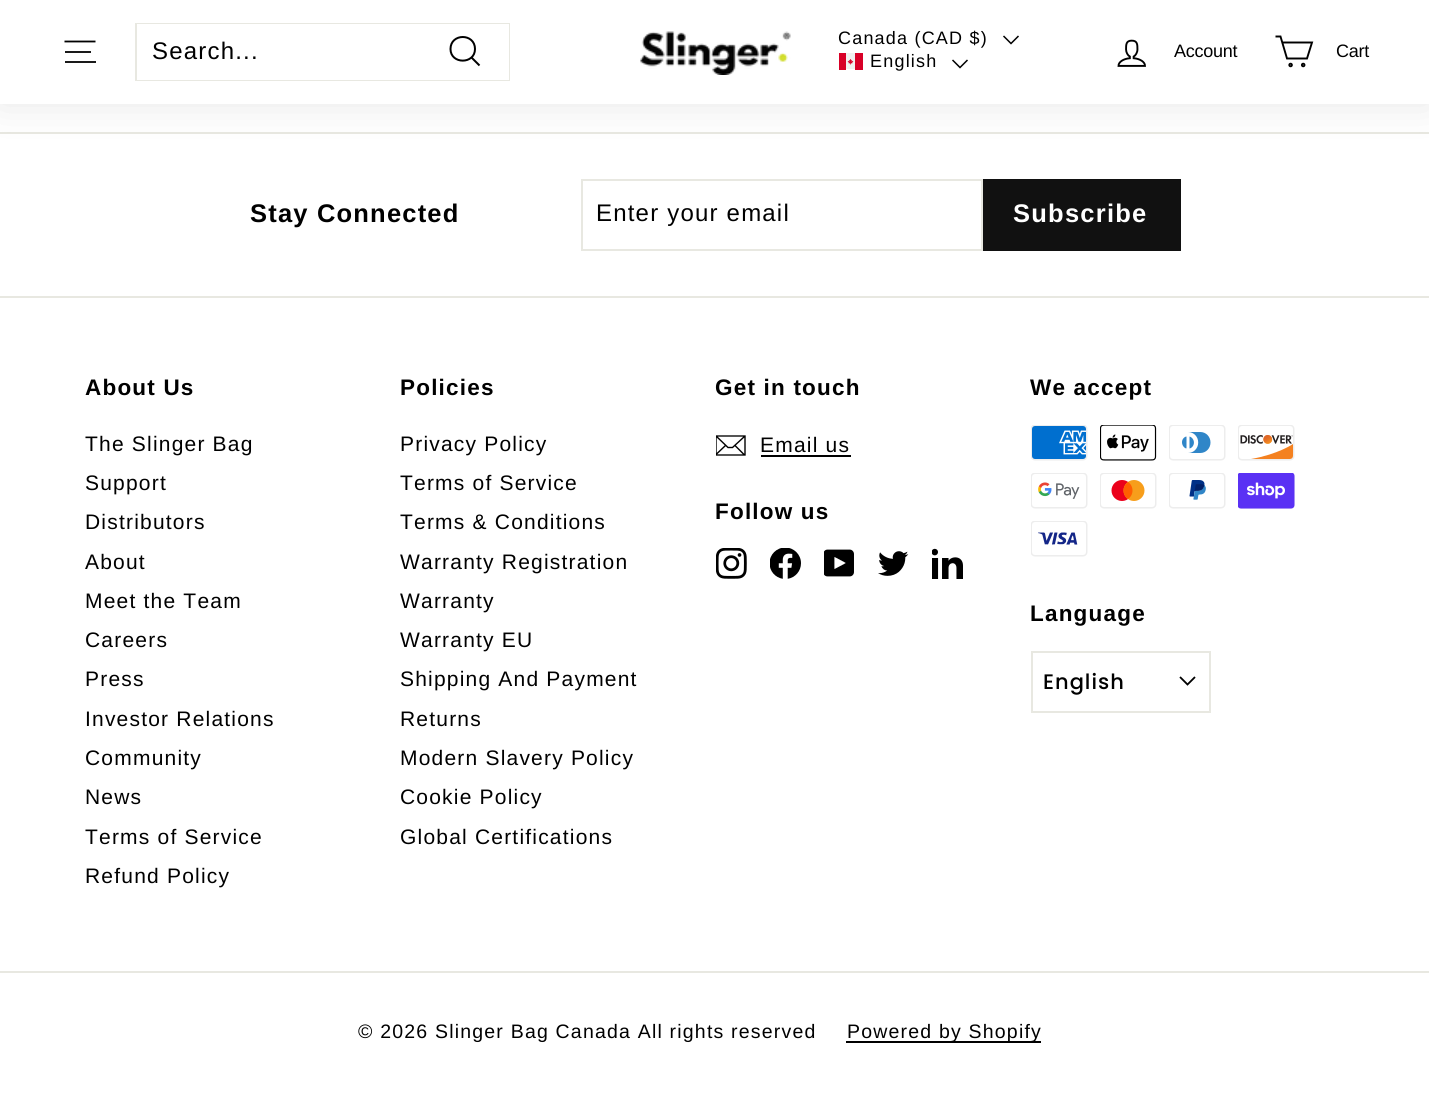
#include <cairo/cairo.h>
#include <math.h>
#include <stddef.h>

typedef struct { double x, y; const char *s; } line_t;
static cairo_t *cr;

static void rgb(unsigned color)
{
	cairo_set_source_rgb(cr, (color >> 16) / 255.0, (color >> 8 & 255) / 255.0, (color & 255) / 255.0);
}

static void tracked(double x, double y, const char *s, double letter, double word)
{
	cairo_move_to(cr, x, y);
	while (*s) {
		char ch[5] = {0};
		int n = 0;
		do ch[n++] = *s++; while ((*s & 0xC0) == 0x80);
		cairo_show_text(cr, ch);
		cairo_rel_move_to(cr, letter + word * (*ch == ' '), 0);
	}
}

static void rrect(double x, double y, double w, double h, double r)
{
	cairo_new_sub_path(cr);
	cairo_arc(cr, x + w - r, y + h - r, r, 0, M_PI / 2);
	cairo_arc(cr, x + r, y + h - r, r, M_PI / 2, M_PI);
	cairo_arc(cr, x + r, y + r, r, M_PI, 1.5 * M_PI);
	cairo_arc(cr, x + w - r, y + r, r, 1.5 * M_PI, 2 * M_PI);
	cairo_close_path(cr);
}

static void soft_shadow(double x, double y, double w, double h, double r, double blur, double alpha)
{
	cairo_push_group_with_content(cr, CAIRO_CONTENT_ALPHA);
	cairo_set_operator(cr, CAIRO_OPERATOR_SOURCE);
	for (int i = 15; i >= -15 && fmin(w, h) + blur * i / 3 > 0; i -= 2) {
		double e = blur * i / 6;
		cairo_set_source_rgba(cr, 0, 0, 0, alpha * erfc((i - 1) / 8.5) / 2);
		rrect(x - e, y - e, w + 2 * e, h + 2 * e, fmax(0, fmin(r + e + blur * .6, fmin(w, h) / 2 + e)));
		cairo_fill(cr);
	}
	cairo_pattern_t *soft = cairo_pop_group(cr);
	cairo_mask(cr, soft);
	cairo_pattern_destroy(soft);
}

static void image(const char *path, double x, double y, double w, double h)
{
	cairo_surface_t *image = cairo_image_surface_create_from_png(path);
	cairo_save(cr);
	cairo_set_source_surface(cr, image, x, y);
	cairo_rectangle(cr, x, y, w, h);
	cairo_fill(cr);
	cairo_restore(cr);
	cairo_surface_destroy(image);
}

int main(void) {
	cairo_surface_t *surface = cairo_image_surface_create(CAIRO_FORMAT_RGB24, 1429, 1093);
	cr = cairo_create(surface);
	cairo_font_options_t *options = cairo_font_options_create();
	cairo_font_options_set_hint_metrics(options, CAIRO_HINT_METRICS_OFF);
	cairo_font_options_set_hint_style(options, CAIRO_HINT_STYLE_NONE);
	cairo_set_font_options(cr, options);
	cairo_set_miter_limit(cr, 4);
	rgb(0xffffff);
	cairo_paint(cr);
	rgb(0xe8e8e1);
	cairo_rectangle(cr, 0, 132, 1429, 2);
	cairo_fill(cr);
	rgb(0x000000);
	soft_shadow(0, 0, 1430, 104, 0, 19, 0.1);
	rgb(0xffffff);
	cairo_rectangle(cr, 0, 0, 1429, 104);
	cairo_fill(cr);
	cairo_new_path(cr);
	cairo_move_to(cr, 64.5, 41.5);
	cairo_line_to(cr, 95.5, 41.5);
	rgb(0x000000);
	cairo_set_line_width(cr, 1.8);
	cairo_stroke(cr);
	rgb(0x1a1a1a);
	cairo_rectangle(cr, 65, 51, 26, 2);
	cairo_fill(cr);
	cairo_rectangle(cr, 65, 61, 31, 2);
	cairo_fill(cr);
	cairo_rectangle(cr, 136, 24, 373, 56);
	rgb(0xe8e8e1);
	cairo_set_line_width(cr, 2);
	cairo_stroke(cr);
	rgb(0xffffff);
	cairo_rectangle(cr, 137, 24, 372, 56);
	cairo_fill(cr);
	cairo_new_path(cr);
	cairo_move_to(cr, 475, 49);
	cairo_curve_to(cr, 475, 64.5, 450.5, 64.5, 450.5, 49);
	cairo_curve_to(cr, 450.5, 33, 475, 33, 475, 49);
	cairo_close_path(cr);
	cairo_move_to(cr, 479.5, 65.5);
	cairo_line_to(cr, 471.5, 57.5);
	rgb(0x000000);
	cairo_stroke(cr);
	image("img/1.png", 640, 31, 151, 44);
	cairo_new_path(cr);
	cairo_move_to(cr, 1003.5, 36);
	cairo_line_to(cr, 1011, 43.5);
	cairo_line_to(cr, 1018.5, 36);
	cairo_set_line_width(cr, 1.5);
	cairo_stroke(cr);
	image("img/2.png", 839, 53, 24, 17);
	cairo_new_path(cr);
	cairo_move_to(cr, 952.5, 60);
	cairo_line_to(cr, 960, 67.5);
	cairo_line_to(cr, 967.5, 60);
	cairo_stroke(cr);
	image("img/3.png", 1117, 39, 29, 28);
	cairo_new_path(cr);
	cairo_move_to(cr, 1282.5, 42.5);
	cairo_line_to(cr, 1312, 42.5);
	cairo_line_to(cr, 1307, 58.5);
	cairo_line_to(cr, 1287, 58.5);
	cairo_line_to(cr, 1280.5, 36.5);
	cairo_line_to(cr, 1275.5, 36.5);
	cairo_set_line_width(cr, 1.9);
	cairo_stroke(cr);
	cairo_arc(cr, 1290.6, 65, 1.3, 0, 2 * M_PI);
	cairo_stroke(cr);
	cairo_arc(cr, 1303.2, 65, 1.3, 0, 2 * M_PI);
	cairo_stroke(cr);
	cairo_rectangle(cr, 582, 180, 400, 70);
	rgb(0xe8e8e1);
	cairo_set_line_width(cr, 2);
	cairo_stroke(cr);
	rgb(0x111111);
	cairo_rectangle(cr, 983, 179, 198, 72);
	cairo_fill(cr);
	rgb(0xe8e8e1);
	cairo_rectangle(cr, 0, 296, 1429, 2);
	cairo_fill(cr);
	cairo_save(cr);
	cairo_rectangle(cr, 716, 431, 30, 30);
	cairo_clip(cr);
	cairo_new_path(cr);
	cairo_move_to(cr, 745, 455);
	cairo_line_to(cr, 716, 455);
	cairo_line_to(cr, 716, 436);
	cairo_line_to(cr, 745, 436);
	cairo_close_path(cr);
	cairo_move_to(cr, 716, 436);
	cairo_line_to(cr, 728, 447.5);
	cairo_line_to(cr, 732.5, 447.5);
	cairo_line_to(cr, 745, 436);
	cairo_move_to(cr, 725.5, 445.5);
	cairo_line_to(cr, 716, 454.5);
	cairo_move_to(cr, 744.5, 455);
	cairo_line_to(cr, 735, 445.5);
	rgb(0x000000);
	cairo_set_line_width(cr, 1.4);
	cairo_stroke(cr);
	cairo_restore(cr);
	rgb(0x000000);
	cairo_rectangle(cr, 761, 455, 90, 2);
	cairo_fill(cr);
	image("img/4.png", 716, 548, 31, 31);
	image("img/5.png", 770, 548, 31, 31);
	image("img/6.png", 824, 549, 30, 28);
	image("img/7.png", 878, 551, 31, 25);
	image("img/8.png", 932, 548, 31, 31);
	image("img/9.png", 1031, 425, 57, 36);
	image("img/10.png", 1100, 425, 57, 36);
	image("img/11.png", 1169, 425, 57, 36);
	image("img/12.png", 1238, 425, 57, 36);
	image("img/13.png", 1031, 473, 57, 36);
	image("img/14.png", 1100, 473, 57, 36);
	image("img/15.png", 1169, 473, 57, 36);
	image("img/16.png", 1238, 473, 57, 36);
	image("img/17.png", 1031, 521, 57, 36);
	cairo_rectangle(cr, 1032, 652, 178, 60);
	rgb(0xe8e8e1);
	cairo_stroke(cr);
	cairo_new_path(cr);
	cairo_move_to(cr, 1180, 677);
	cairo_line_to(cr, 1187.5, 684.5);
	cairo_line_to(cr, 1195, 677);
	rgb(0x000000);
	cairo_set_line_width(cr, 1.8);
	cairo_stroke(cr);
	rgb(0xe8e8e1);
	cairo_rectangle(cr, 0, 971, 1429, 2);
	cairo_fill(cr);
	rgb(0x000000);
	cairo_rectangle(cr, 846, 1041, 195, 2);
	cairo_fill(cr);
	cairo_select_font_face(cr, "Liberation Sans", CAIRO_FONT_SLANT_NORMAL, CAIRO_FONT_WEIGHT_NORMAL);
	cairo_set_font_size(cr, 24);
	tracked(152, 59, "Search...", 1.2, 0);
	cairo_set_font_size(cr, 18);
	tracked(838, 44, "Canada (CAD $)", 1.2, 0);
	tracked(870, 67, "English", 1.2, 0);
	tracked(1174, 57, "Account", -0.25, 0);
	tracked(1336, 57, "Cart", -0.25, 0);
	cairo_select_font_face(cr, "Liberation Sans", CAIRO_FONT_SLANT_NORMAL, CAIRO_FONT_WEIGHT_BOLD);
	cairo_set_font_size(cr, 25.5);
	tracked(250, 222, "Stay Connected", 1.2, 0);
	cairo_select_font_face(cr, "Liberation Sans", CAIRO_FONT_SLANT_NORMAL, CAIRO_FONT_WEIGHT_NORMAL);
	cairo_set_font_size(cr, 24);
	tracked(596, 221, "Enter your email", 1.2, 0);
	cairo_select_font_face(cr, "Liberation Sans", CAIRO_FONT_SLANT_NORMAL, CAIRO_FONT_WEIGHT_BOLD);
	cairo_set_font_size(cr, 25.5);
	rgb(0xffffff);
	tracked(1013, 222, "Subscribe", 1.25, 0);
	cairo_set_font_size(cr, 22.5);
	rgb(0x000000);
	tracked(85, 395, "About Us", 1.2, 0);
	cairo_select_font_face(cr, "Liberation Sans", CAIRO_FONT_SLANT_NORMAL, CAIRO_FONT_WEIGHT_NORMAL);
	cairo_set_font_size(cr, 21);
	{
		static const line_t items[] = {
			{85, 451, "The Slinger Bag"},
			{85, 490, "Support"},
			{85, 529, "Distributors"},
			{85, 569, "About"},
			{85, 608, "Meet the Team"},
			{85, 647, "Careers"},
			{85, 686, "Press"},
			{85, 726, "Investor Relations"},
			{85, 765, "Community"},
			{85, 804, "News"},
			{85, 844, "Terms of Service"},
			{85, 883, "Refund Policy"},
		};
		for (size_t i = 0; i < sizeof items / sizeof *items; i++) {
			tracked(items[i].x, items[i].y, items[i].s, 1.2, 0);
		}
	}
	cairo_select_font_face(cr, "Liberation Sans", CAIRO_FONT_SLANT_NORMAL, CAIRO_FONT_WEIGHT_BOLD);
	cairo_set_font_size(cr, 22.5);
	tracked(400, 395, "Policies", 1.2, 0);
	cairo_select_font_face(cr, "Liberation Sans", CAIRO_FONT_SLANT_NORMAL, CAIRO_FONT_WEIGHT_NORMAL);
	cairo_set_font_size(cr, 21);
	{
		static const line_t items[] = {
			{400, 451, "Privacy Policy"},
			{400, 490, "Terms of Service"},
			{400, 529, "Terms & Conditions"},
			{400, 569, "Warranty Registration"},
			{400, 608, "Warranty"},
			{400, 647, "Warranty EU"},
			{400, 686, "Shipping And Payment"},
			{400, 726, "Returns"},
			{400, 765, "Modern Slavery Policy"},
			{400, 804, "Cookie Policy"},
			{400, 844, "Global Certifications"},
		};
		for (size_t i = 0; i < sizeof items / sizeof *items; i++) {
			tracked(items[i].x, items[i].y, items[i].s, 1.2, 0);
		}
	}
	cairo_select_font_face(cr, "Liberation Sans", CAIRO_FONT_SLANT_NORMAL, CAIRO_FONT_WEIGHT_BOLD);
	cairo_set_font_size(cr, 22.5);
	tracked(715, 395, "Get in touch", 1.2, 0);
	cairo_select_font_face(cr, "Liberation Sans", CAIRO_FONT_SLANT_NORMAL, CAIRO_FONT_WEIGHT_NORMAL);
	cairo_set_font_size(cr, 21);
	tracked(760, 452, "Email us", 1.2, 0);
	cairo_select_font_face(cr, "Liberation Sans", CAIRO_FONT_SLANT_NORMAL, CAIRO_FONT_WEIGHT_BOLD);
	cairo_set_font_size(cr, 22.5);
	{
		static const line_t items[] = {
			{715, 519, "Follow us"},
			{1030, 395, "We accept"},
			{1030, 621, "Language"},
		};
		for (size_t i = 0; i < sizeof items / sizeof *items; i++) {
			tracked(items[i].x, items[i].y, items[i].s, 1.2, 0);
		}
	}
	cairo_select_font_face(cr, "Poppins Medium", CAIRO_FONT_SLANT_NORMAL, CAIRO_FONT_WEIGHT_NORMAL);
	cairo_set_font_size(cr, 21);
	tracked(1043, 689, "English", 1, 0);
	cairo_select_font_face(cr, "Liberation Sans", CAIRO_FONT_SLANT_NORMAL, CAIRO_FONT_WEIGHT_NORMAL);
	cairo_set_font_size(cr, 19.5);
	tracked(358, 1038, "© 2026 Slinger Bag Canada All rights reserved", 1.2, 0);
	tracked(847, 1038, "Powered by Shopify", 1.2, 0);
	cairo_surface_write_to_png(surface, "page.png");
	cairo_font_options_destroy(options);
	cairo_destroy(cr);
	cairo_surface_destroy(surface);
	return 0;
}
